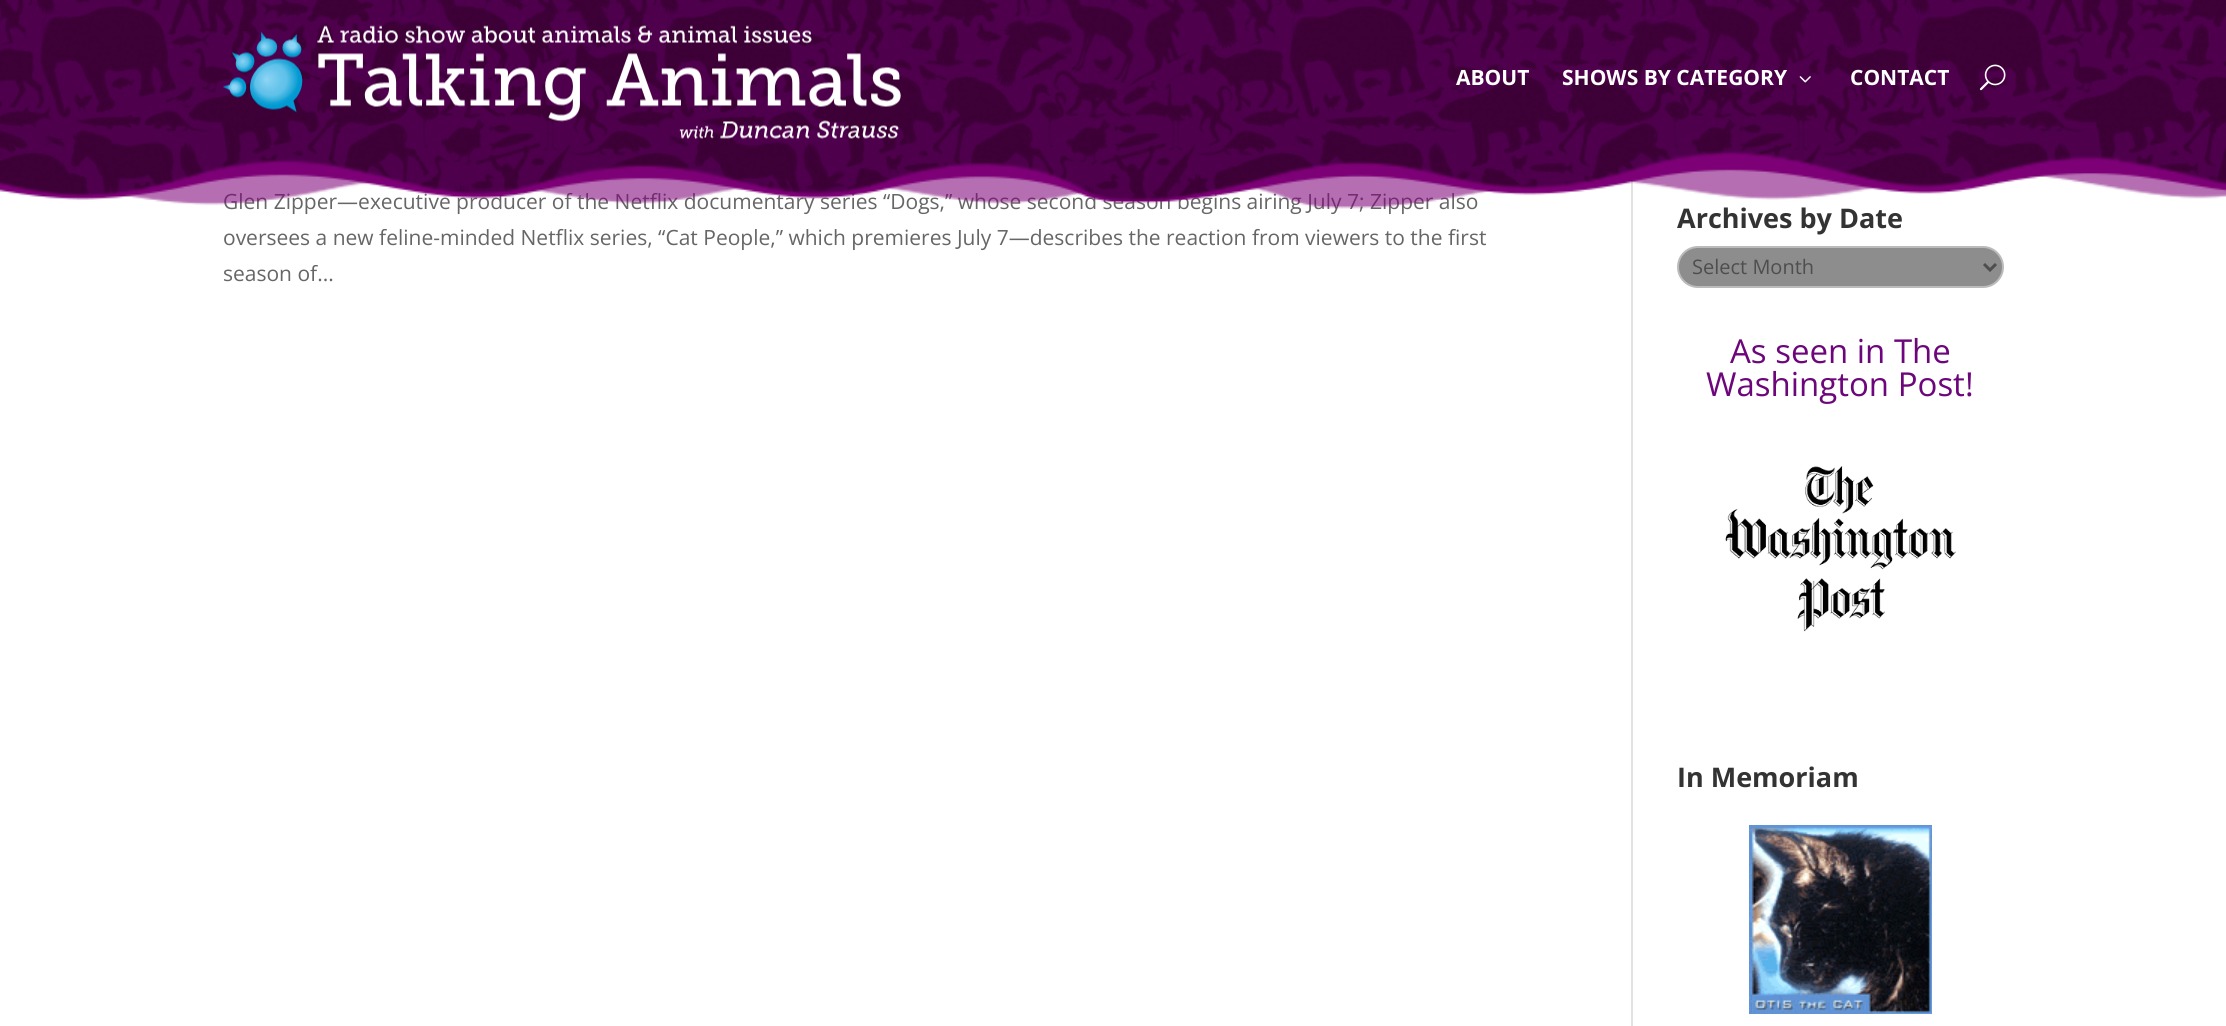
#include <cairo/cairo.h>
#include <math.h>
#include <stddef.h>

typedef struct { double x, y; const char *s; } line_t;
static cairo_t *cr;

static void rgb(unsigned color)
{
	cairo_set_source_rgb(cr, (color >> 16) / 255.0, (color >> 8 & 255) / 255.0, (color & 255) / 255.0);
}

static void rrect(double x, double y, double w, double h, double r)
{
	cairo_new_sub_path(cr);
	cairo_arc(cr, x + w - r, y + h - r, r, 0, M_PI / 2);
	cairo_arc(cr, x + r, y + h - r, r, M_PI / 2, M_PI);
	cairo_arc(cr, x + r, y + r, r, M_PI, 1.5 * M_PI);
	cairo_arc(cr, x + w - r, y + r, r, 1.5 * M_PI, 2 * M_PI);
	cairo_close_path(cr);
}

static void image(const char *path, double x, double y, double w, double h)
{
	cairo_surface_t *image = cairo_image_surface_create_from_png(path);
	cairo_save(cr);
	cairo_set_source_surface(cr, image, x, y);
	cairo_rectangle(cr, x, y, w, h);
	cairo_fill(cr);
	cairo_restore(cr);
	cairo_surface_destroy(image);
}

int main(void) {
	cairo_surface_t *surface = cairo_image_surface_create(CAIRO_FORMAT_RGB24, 2226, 1026);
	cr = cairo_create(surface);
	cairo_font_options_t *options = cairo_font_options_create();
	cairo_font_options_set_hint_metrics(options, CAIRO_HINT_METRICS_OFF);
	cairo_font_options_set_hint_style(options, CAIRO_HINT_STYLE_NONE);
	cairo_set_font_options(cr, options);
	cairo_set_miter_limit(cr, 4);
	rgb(0xffffff);
	cairo_paint(cr);
	rgb(0xe2e2e2);
	cairo_rectangle(cr, 1631, 179, 2, 847);
	cairo_fill(cr);
	rgb(0x8d8d8d);
	rrect(1678, 247, 325, 40, 20);
	cairo_fill_preserve(cr);
	rgb(0xbbbbbb);
	cairo_stroke(cr);
	cairo_new_path(cr);
	cairo_move_to(cr, 1984, 264);
	cairo_line_to(cr, 1990, 270);
	cairo_line_to(cr, 1996, 264);
	rgb(0x4e4e4e);
	cairo_set_line_width(cr, 3);
	cairo_stroke(cr);
	image("img/5.png", 1725, 466, 231, 166);
	image("img/6.png", 1749, 825, 183, 189);
	cairo_select_font_face(cr, "Open Sans", CAIRO_FONT_SLANT_NORMAL, CAIRO_FONT_WEIGHT_NORMAL);
	cairo_set_font_size(cr, 21);
	rgb(0x666666);
	{
		static const line_t items[] = {
			{223, 209, "Glen Zipper—executive producer of the Netflix documentary series “Dogs,” whose second season begins airing July 7; Zipper also"},
			{223, 245, "oversees a new feline-minded Netflix series, “Cat People,” which premieres July 7—describes the reaction from viewers to the first"},
			{223, 281, "season of..."},
		};
		for (size_t i = 0; i < sizeof items / sizeof *items; i++) {
			cairo_move_to(cr, items[i].x, items[i].y);
			cairo_show_text(cr, items[i].s);
		}
	}
	cairo_select_font_face(cr, "Open Sans", CAIRO_FONT_SLANT_NORMAL, CAIRO_FONT_WEIGHT_BOLD);
	cairo_set_font_size(cr, 27);
	rgb(0x333333);
	cairo_move_to(cr, 1677, 228);
	cairo_show_text(cr, "Archives by Date");
	image("img/1.png", 0, 0, 2226, 209);
	cairo_set_font_size(cr, 21);
	rgb(0xffffff);
	cairo_move_to(cr, 1850, 85);
	cairo_show_text(cr, "CONTACT");
	image("img/3.png", 1799, 76, 12, 7);
	cairo_move_to(cr, 1562, 85);
	cairo_show_text(cr, "SHOWS BY CATEGORY");
	cairo_move_to(cr, 1456, 85);
	cairo_show_text(cr, "ABOUT");
	image("img/2.png", 223, 25, 678, 114);
	image("img/4.png", 1979, 64, 27, 27);
	cairo_select_font_face(cr, "Open Sans", CAIRO_FONT_SLANT_NORMAL, CAIRO_FONT_WEIGHT_NORMAL);
	cairo_set_font_size(cr, 20);
	rgb(0x4e4e4e);
	cairo_move_to(cr, 1692, 274);
	cairo_show_text(cr, "Select Month");
	cairo_set_font_size(cr, 33);
	rgb(0x6c067a);
	cairo_move_to(cr, 1730, 363);
	cairo_show_text(cr, "As seen in The");
	cairo_move_to(cr, 1706, 396);
	cairo_show_text(cr, "Washington Post!");
	cairo_select_font_face(cr, "Open Sans", CAIRO_FONT_SLANT_NORMAL, CAIRO_FONT_WEIGHT_BOLD);
	cairo_set_font_size(cr, 27);
	rgb(0x333333);
	cairo_move_to(cr, 1677, 787);
	cairo_show_text(cr, "In Memoriam");
	cairo_surface_write_to_png(surface, "page.png");
	cairo_font_options_destroy(options);
	cairo_destroy(cr);
	cairo_surface_destroy(surface);
	return 0;
}
